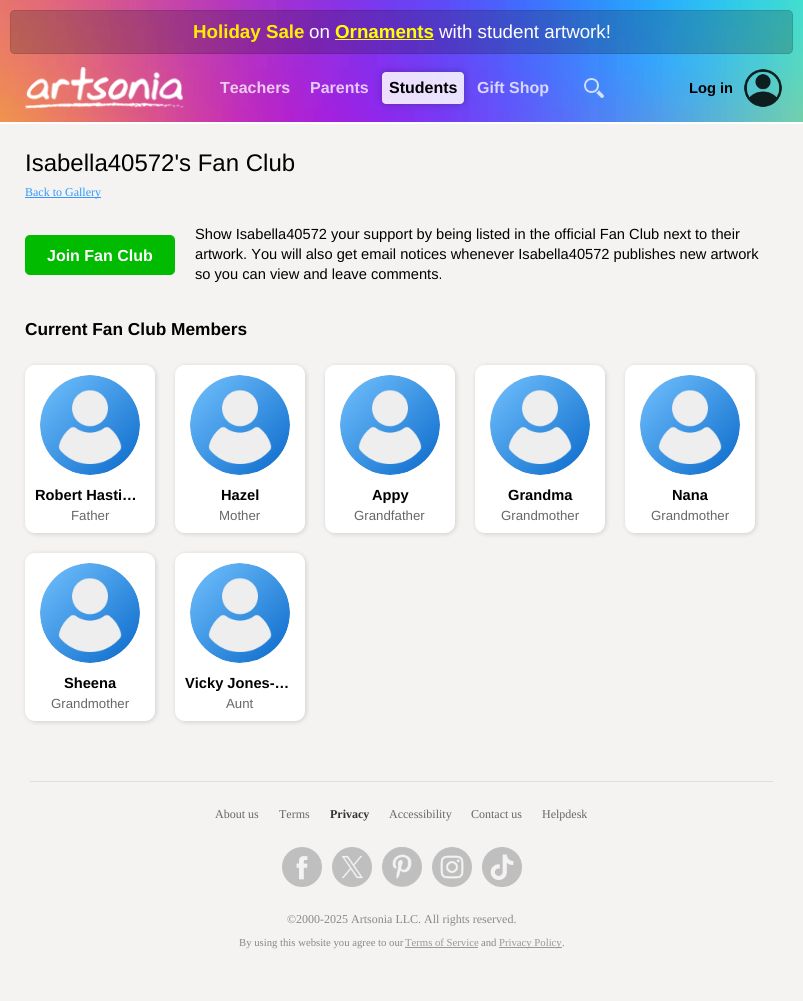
#include <cairo/cairo.h>
#include <math.h>
#include <stddef.h>

typedef struct { double x, y; const char *s; } line_t;
static cairo_t *cr;

static void rgb(unsigned color)
{
	cairo_set_source_rgb(cr, (color >> 16) / 255.0, (color >> 8 & 255) / 255.0, (color & 255) / 255.0);
}

static void rrect(double x, double y, double w, double h, double r)
{
	cairo_new_sub_path(cr);
	cairo_arc(cr, x + w - r, y + h - r, r, 0, M_PI / 2);
	cairo_arc(cr, x + r, y + h - r, r, M_PI / 2, M_PI);
	cairo_arc(cr, x + r, y + r, r, M_PI, 1.5 * M_PI);
	cairo_arc(cr, x + w - r, y + r, r, 1.5 * M_PI, 2 * M_PI);
	cairo_close_path(cr);
}

static void soft_shadow(double x, double y, double w, double h, double r, double blur, double alpha)
{
	cairo_push_group_with_content(cr, CAIRO_CONTENT_ALPHA);
	cairo_set_operator(cr, CAIRO_OPERATOR_SOURCE);
	for (int i = 15; i >= -15 && fmin(w, h) + blur * i / 3 > 0; i -= 2) {
		double e = blur * i / 6;
		cairo_set_source_rgba(cr, 0, 0, 0, alpha * erfc((i - 1) / 8.5) / 2);
		rrect(x - e, y - e, w + 2 * e, h + 2 * e, fmax(0, fmin(r + e + blur * .6, fmin(w, h) / 2 + e)));
		cairo_fill(cr);
	}
	cairo_pattern_t *soft = cairo_pop_group(cr);
	cairo_mask(cr, soft);
	cairo_pattern_destroy(soft);
}

static void image(const char *path, double x, double y, double w, double h)
{
	cairo_surface_t *image = cairo_image_surface_create_from_png(path);
	cairo_save(cr);
	cairo_set_source_surface(cr, image, x, y);
	cairo_rectangle(cr, x, y, w, h);
	cairo_fill(cr);
	cairo_restore(cr);
	cairo_surface_destroy(image);
}

int main(void) {
	cairo_surface_t *surface = cairo_image_surface_create(CAIRO_FORMAT_RGB24, 803, 1001);
	cr = cairo_create(surface);
	cairo_font_options_t *options = cairo_font_options_create();
	cairo_font_options_set_hint_metrics(options, CAIRO_HINT_METRICS_OFF);
	cairo_font_options_set_hint_style(options, CAIRO_HINT_STYLE_NONE);
	cairo_set_font_options(cr, options);
	cairo_set_miter_limit(cr, 4);
	rgb(0xf4f3f1);
	cairo_paint(cr);
	image("img/1.png", 0, 0, 803, 122);
	cairo_set_source_rgba(cr, 0, 0, 0, 0.2);
	rrect(10, 10, 783, 44, 5);
	cairo_fill(cr);
	rrect(10.5, 10.5, 782, 43, 4.5);
	cairo_set_source_rgba(cr, 0, 0, 0, 0.1);
	cairo_set_line_width(cr, 1);
	cairo_stroke(cr);
	rgb(0xffff00);
	cairo_rectangle(cr, 335, 39, 99, 1);
	cairo_fill(cr);
	image("img/2.png", 25, 67, 160, 42);
	cairo_save(cr);
	cairo_set_fill_rule(cr, CAIRO_FILL_RULE_EVEN_ODD);
	cairo_new_path(cr);
	cairo_move_to(cr, 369, 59);
	cairo_line_to(cr, 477, 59);
	cairo_line_to(cr, 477, 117);
	cairo_line_to(cr, 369, 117);
	cairo_close_path(cr);
	cairo_move_to(cr, 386, 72);
	cairo_line_to(cr, 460, 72);
	cairo_curve_to(cr, 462, 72, 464, 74, 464, 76);
	cairo_line_to(cr, 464, 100);
	cairo_curve_to(cr, 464, 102, 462, 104, 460, 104);
	cairo_line_to(cr, 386, 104);
	cairo_curve_to(cr, 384, 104, 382, 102, 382, 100);
	cairo_line_to(cr, 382, 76);
	cairo_curve_to(cr, 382, 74, 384, 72, 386, 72);
	cairo_close_path(cr);
	cairo_clip(cr);
	rgb(0x000000);
	soft_shadow(382, 72, 82, 32, 4, 4, 0.25);
	cairo_restore(cr);
	cairo_set_source_rgba(cr, 1, 1, 1, 0.85);
	rrect(382, 72, 82, 32, 4);
	cairo_fill(cr);
	image("img/3.png", 584, 78, 20, 20);
	image("img/4.png", 744, 69, 38, 38);
	rgb(0xffffff);
	cairo_rectangle(cr, 0, 122, 803, 2);
	cairo_fill(cr);
	rgb(0x3399ff);
	cairo_rectangle(cr, 25, 197, 76, 1);
	cairo_fill(cr);
	rgb(0x00bb00);
	rrect(25, 235, 150, 40, 5);
	cairo_fill(cr);
	rgb(0x000000);
	soft_shadow(26, 366, 130, 168, 10, 2.5, 0.15);
	rgb(0xffffff);
	rrect(25, 365, 130, 168, 10);
	cairo_fill(cr);
	rgb(0xeeeeee);
	cairo_arc(cr, 90, 425, 50, 0, 2 * M_PI);
	cairo_fill(cr);
	image("img/5.png", 40, 375, 100, 100);
	rgb(0x000000);
	soft_shadow(176, 366, 130, 168, 10, 2.5, 0.15);
	rgb(0xffffff);
	rrect(175, 365, 130, 168, 10);
	cairo_fill(cr);
	rgb(0xeeeeee);
	cairo_arc(cr, 240, 425, 50, 0, 2 * M_PI);
	cairo_fill(cr);
	image("img/6.png", 190, 375, 100, 100);
	rgb(0x000000);
	soft_shadow(326, 366, 130, 168, 10, 2.5, 0.15);
	rgb(0xffffff);
	rrect(325, 365, 130, 168, 10);
	cairo_fill(cr);
	rgb(0xeeeeee);
	cairo_arc(cr, 390, 425, 50, 0, 2 * M_PI);
	cairo_fill(cr);
	image("img/7.png", 340, 375, 100, 100);
	rgb(0x000000);
	soft_shadow(476, 366, 130, 168, 10, 2.5, 0.15);
	rgb(0xffffff);
	rrect(475, 365, 130, 168, 10);
	cairo_fill(cr);
	rgb(0xeeeeee);
	cairo_arc(cr, 540, 425, 50, 0, 2 * M_PI);
	cairo_fill(cr);
	image("img/8.png", 490, 375, 100, 100);
	rgb(0x000000);
	soft_shadow(626, 366, 130, 168, 10, 2.5, 0.15);
	rgb(0xffffff);
	rrect(625, 365, 130, 168, 10);
	cairo_fill(cr);
	rgb(0xeeeeee);
	cairo_arc(cr, 690, 425, 50, 0, 2 * M_PI);
	cairo_fill(cr);
	image("img/9.png", 640, 375, 100, 100);
	rgb(0x000000);
	soft_shadow(26, 554, 130, 168, 10, 2.5, 0.15);
	rgb(0xffffff);
	rrect(25, 553, 130, 168, 10);
	cairo_fill(cr);
	rgb(0xeeeeee);
	cairo_arc(cr, 90, 613, 50, 0, 2 * M_PI);
	cairo_fill(cr);
	image("img/10.png", 40, 563, 100, 100);
	rgb(0x000000);
	soft_shadow(176, 554, 130, 168, 10, 2.5, 0.15);
	rgb(0xffffff);
	rrect(175, 553, 130, 168, 10);
	cairo_fill(cr);
	rgb(0xeeeeee);
	cairo_arc(cr, 240, 613, 50, 0, 2 * M_PI);
	cairo_fill(cr);
	image("img/11.png", 190, 563, 100, 100);
	rgb(0xdddddd);
	cairo_rectangle(cr, 30, 781, 743, 1);
	cairo_fill(cr);
	image("img/12.png", 282, 847, 40, 40);
	image("img/13.png", 332, 847, 40, 40);
	image("img/14.png", 382, 847, 40, 40);
	image("img/15.png", 432, 847, 40, 40);
	image("img/16.png", 482, 847, 40, 40);
	rgb(0x999999);
	cairo_rectangle(cr, 405, 947, 73, 1);
	cairo_fill(cr);
	cairo_rectangle(cr, 499, 947, 63, 1);
	cairo_fill(cr);
	cairo_select_font_face(cr, "Liberation Sans", CAIRO_FONT_SLANT_NORMAL, CAIRO_FONT_WEIGHT_BOLD);
	cairo_set_font_size(cr, 18.75);
	rgb(0xffee00);
	cairo_move_to(cr, 193, 38);
	cairo_show_text(cr, "Holiday Sale");
	cairo_select_font_face(cr, "Liberation Sans", CAIRO_FONT_SLANT_NORMAL, CAIRO_FONT_WEIGHT_NORMAL);
	rgb(0xffffff);
	cairo_move_to(cr, 309, 38);
	cairo_show_text(cr, "on");
	cairo_select_font_face(cr, "Liberation Sans", CAIRO_FONT_SLANT_NORMAL, CAIRO_FONT_WEIGHT_BOLD);
	rgb(0xffff00);
	cairo_move_to(cr, 335, 38);
	cairo_show_text(cr, "Ornaments");
	cairo_select_font_face(cr, "Liberation Sans", CAIRO_FONT_SLANT_NORMAL, CAIRO_FONT_WEIGHT_NORMAL);
	rgb(0xffffff);
	cairo_move_to(cr, 439, 38);
	cairo_show_text(cr, "with student artwork!");
	cairo_select_font_face(cr, "Liberation Sans", CAIRO_FONT_SLANT_NORMAL, CAIRO_FONT_WEIGHT_BOLD);
	cairo_set_font_size(cr, 16);
	rgb(0xedcaf0);
	cairo_move_to(cr, 220, 93);
	cairo_show_text(cr, "Teachers");
	rgb(0xe5c9f8);
	cairo_move_to(cr, 310, 93);
	cairo_show_text(cr, "Parents");
	rgb(0x000000);
	cairo_move_to(cr, 389, 93);
	cairo_show_text(cr, "Students");
	rgb(0xd6d6fe);
	cairo_move_to(cr, 477, 93);
	cairo_show_text(cr, "Gift Shop");
	cairo_set_font_size(cr, 14.65);
	rgb(0x000000);
	cairo_move_to(cr, 689, 93);
	cairo_show_text(cr, "Log in");
	cairo_select_font_face(cr, "Liberation Sans", CAIRO_FONT_SLANT_NORMAL, CAIRO_FONT_WEIGHT_NORMAL);
	cairo_set_font_size(cr, 24);
	cairo_move_to(cr, 25, 171);
	cairo_show_text(cr, "Isabella40572's Fan Club");
	cairo_select_font_face(cr, "Liberation Serif", CAIRO_FONT_SLANT_NORMAL, CAIRO_FONT_WEIGHT_NORMAL);
	cairo_set_font_size(cr, 12);
	rgb(0x3399ff);
	cairo_move_to(cr, 25, 196);
	cairo_show_text(cr, "Back to Gallery");
	cairo_select_font_face(cr, "Liberation Sans", CAIRO_FONT_SLANT_NORMAL, CAIRO_FONT_WEIGHT_BOLD);
	cairo_set_font_size(cr, 16);
	rgb(0xffffff);
	cairo_move_to(cr, 47, 261);
	cairo_show_text(cr, "Join Fan Club");
	cairo_select_font_face(cr, "Liberation Sans", CAIRO_FONT_SLANT_NORMAL, CAIRO_FONT_WEIGHT_NORMAL);
	cairo_set_font_size(cr, 14.65);
	rgb(0x000000);
	{
		static const line_t items[] = {
			{195, 239, "Show Isabella40572 your support by being listed in the official Fan Club next to their"},
			{195, 259, "artwork. You will also get email notices whenever Isabella40572 publishes new artwork"},
			{195, 279, "so you can view and leave comments."},
		};
		for (size_t i = 0; i < sizeof items / sizeof *items; i++) {
			cairo_move_to(cr, items[i].x, items[i].y);
			cairo_show_text(cr, items[i].s);
		}
	}
	cairo_select_font_face(cr, "Liberation Sans", CAIRO_FONT_SLANT_NORMAL, CAIRO_FONT_WEIGHT_BOLD);
	cairo_set_font_size(cr, 17.3);
	cairo_move_to(cr, 25, 335);
	cairo_show_text(cr, "Current Fan Club Members");
	cairo_set_font_size(cr, 14.65);
	cairo_move_to(cr, 35, 500);
	cairo_show_text(cr, "Robert Hasti…");
	cairo_select_font_face(cr, "Liberation Sans", CAIRO_FONT_SLANT_NORMAL, CAIRO_FONT_WEIGHT_NORMAL);
	cairo_set_font_size(cr, 13.25);
	rgb(0x666666);
	cairo_move_to(cr, 71, 520);
	cairo_show_text(cr, "Father");
	cairo_select_font_face(cr, "Liberation Sans", CAIRO_FONT_SLANT_NORMAL, CAIRO_FONT_WEIGHT_BOLD);
	cairo_set_font_size(cr, 14.65);
	rgb(0x000000);
	cairo_move_to(cr, 221, 500);
	cairo_show_text(cr, "Hazel");
	cairo_select_font_face(cr, "Liberation Sans", CAIRO_FONT_SLANT_NORMAL, CAIRO_FONT_WEIGHT_NORMAL);
	cairo_set_font_size(cr, 13.25);
	rgb(0x666666);
	cairo_move_to(cr, 219, 520);
	cairo_show_text(cr, "Mother");
	cairo_select_font_face(cr, "Liberation Sans", CAIRO_FONT_SLANT_NORMAL, CAIRO_FONT_WEIGHT_BOLD);
	cairo_set_font_size(cr, 14.65);
	rgb(0x000000);
	cairo_move_to(cr, 372, 500);
	cairo_show_text(cr, "Appy");
	cairo_select_font_face(cr, "Liberation Sans", CAIRO_FONT_SLANT_NORMAL, CAIRO_FONT_WEIGHT_NORMAL);
	cairo_set_font_size(cr, 13.25);
	rgb(0x666666);
	cairo_move_to(cr, 354, 520);
	cairo_show_text(cr, "Grandfather");
	cairo_select_font_face(cr, "Liberation Sans", CAIRO_FONT_SLANT_NORMAL, CAIRO_FONT_WEIGHT_BOLD);
	cairo_set_font_size(cr, 14.65);
	rgb(0x000000);
	cairo_move_to(cr, 508, 500);
	cairo_show_text(cr, "Grandma");
	cairo_select_font_face(cr, "Liberation Sans", CAIRO_FONT_SLANT_NORMAL, CAIRO_FONT_WEIGHT_NORMAL);
	cairo_set_font_size(cr, 13.25);
	rgb(0x666666);
	cairo_move_to(cr, 501, 520);
	cairo_show_text(cr, "Grandmother");
	cairo_select_font_face(cr, "Liberation Sans", CAIRO_FONT_SLANT_NORMAL, CAIRO_FONT_WEIGHT_BOLD);
	cairo_set_font_size(cr, 14.65);
	rgb(0x000000);
	cairo_move_to(cr, 672, 500);
	cairo_show_text(cr, "Nana");
	cairo_select_font_face(cr, "Liberation Sans", CAIRO_FONT_SLANT_NORMAL, CAIRO_FONT_WEIGHT_NORMAL);
	cairo_set_font_size(cr, 13.25);
	rgb(0x666666);
	cairo_move_to(cr, 651, 520);
	cairo_show_text(cr, "Grandmother");
	cairo_select_font_face(cr, "Liberation Sans", CAIRO_FONT_SLANT_NORMAL, CAIRO_FONT_WEIGHT_BOLD);
	cairo_set_font_size(cr, 14.65);
	rgb(0x000000);
	cairo_move_to(cr, 64, 688);
	cairo_show_text(cr, "Sheena");
	cairo_select_font_face(cr, "Liberation Sans", CAIRO_FONT_SLANT_NORMAL, CAIRO_FONT_WEIGHT_NORMAL);
	cairo_set_font_size(cr, 13.25);
	rgb(0x666666);
	cairo_move_to(cr, 51, 708);
	cairo_show_text(cr, "Grandmother");
	cairo_select_font_face(cr, "Liberation Sans", CAIRO_FONT_SLANT_NORMAL, CAIRO_FONT_WEIGHT_BOLD);
	cairo_set_font_size(cr, 14.65);
	rgb(0x000000);
	cairo_move_to(cr, 185, 688);
	cairo_show_text(cr, "Vicky Jones-…");
	cairo_select_font_face(cr, "Liberation Sans", CAIRO_FONT_SLANT_NORMAL, CAIRO_FONT_WEIGHT_NORMAL);
	cairo_set_font_size(cr, 13.25);
	rgb(0x666666);
	cairo_move_to(cr, 226, 708);
	cairo_show_text(cr, "Aunt");
	cairo_select_font_face(cr, "Liberation Serif", CAIRO_FONT_SLANT_NORMAL, CAIRO_FONT_WEIGHT_NORMAL);
	cairo_set_font_size(cr, 12);
	cairo_move_to(cr, 215, 818);
	cairo_show_text(cr, "About us");
	cairo_move_to(cr, 279, 818);
	cairo_show_text(cr, "Terms");
	cairo_select_font_face(cr, "Liberation Serif", CAIRO_FONT_SLANT_NORMAL, CAIRO_FONT_WEIGHT_BOLD);
	rgb(0x333333);
	cairo_move_to(cr, 330, 818);
	cairo_show_text(cr, "Privacy");
	cairo_select_font_face(cr, "Liberation Serif", CAIRO_FONT_SLANT_NORMAL, CAIRO_FONT_WEIGHT_NORMAL);
	rgb(0x666666);
	{
		static const line_t items[] = {
			{389, 818, "Accessibility"},
			{471, 818, "Contact us"},
			{542, 818, "Helpdesk"},
		};
		for (size_t i = 0; i < sizeof items / sizeof *items; i++) {
			cairo_move_to(cr, items[i].x, items[i].y);
			cairo_show_text(cr, items[i].s);
		}
	}
	rgb(0x888888);
	cairo_move_to(cr, 287, 923);
	cairo_show_text(cr, "©2000-2025 Artsonia LLC. All rights reserved.");
	cairo_set_font_size(cr, 10.7);
	cairo_move_to(cr, 239, 946);
	cairo_show_text(cr, "By using this website you agree to our");
	rgb(0x999999);
	cairo_move_to(cr, 405, 946);
	cairo_show_text(cr, "Terms of Service");
	rgb(0x888888);
	cairo_move_to(cr, 481, 946);
	cairo_show_text(cr, "and");
	rgb(0x999999);
	cairo_move_to(cr, 499, 946);
	cairo_show_text(cr, "Privacy Policy");
	rgb(0x888888);
	cairo_move_to(cr, 562, 946);
	cairo_show_text(cr, ".");
	cairo_surface_write_to_png(surface, "page.png");
	cairo_font_options_destroy(options);
	cairo_destroy(cr);
	cairo_surface_destroy(surface);
	return 0;
}
